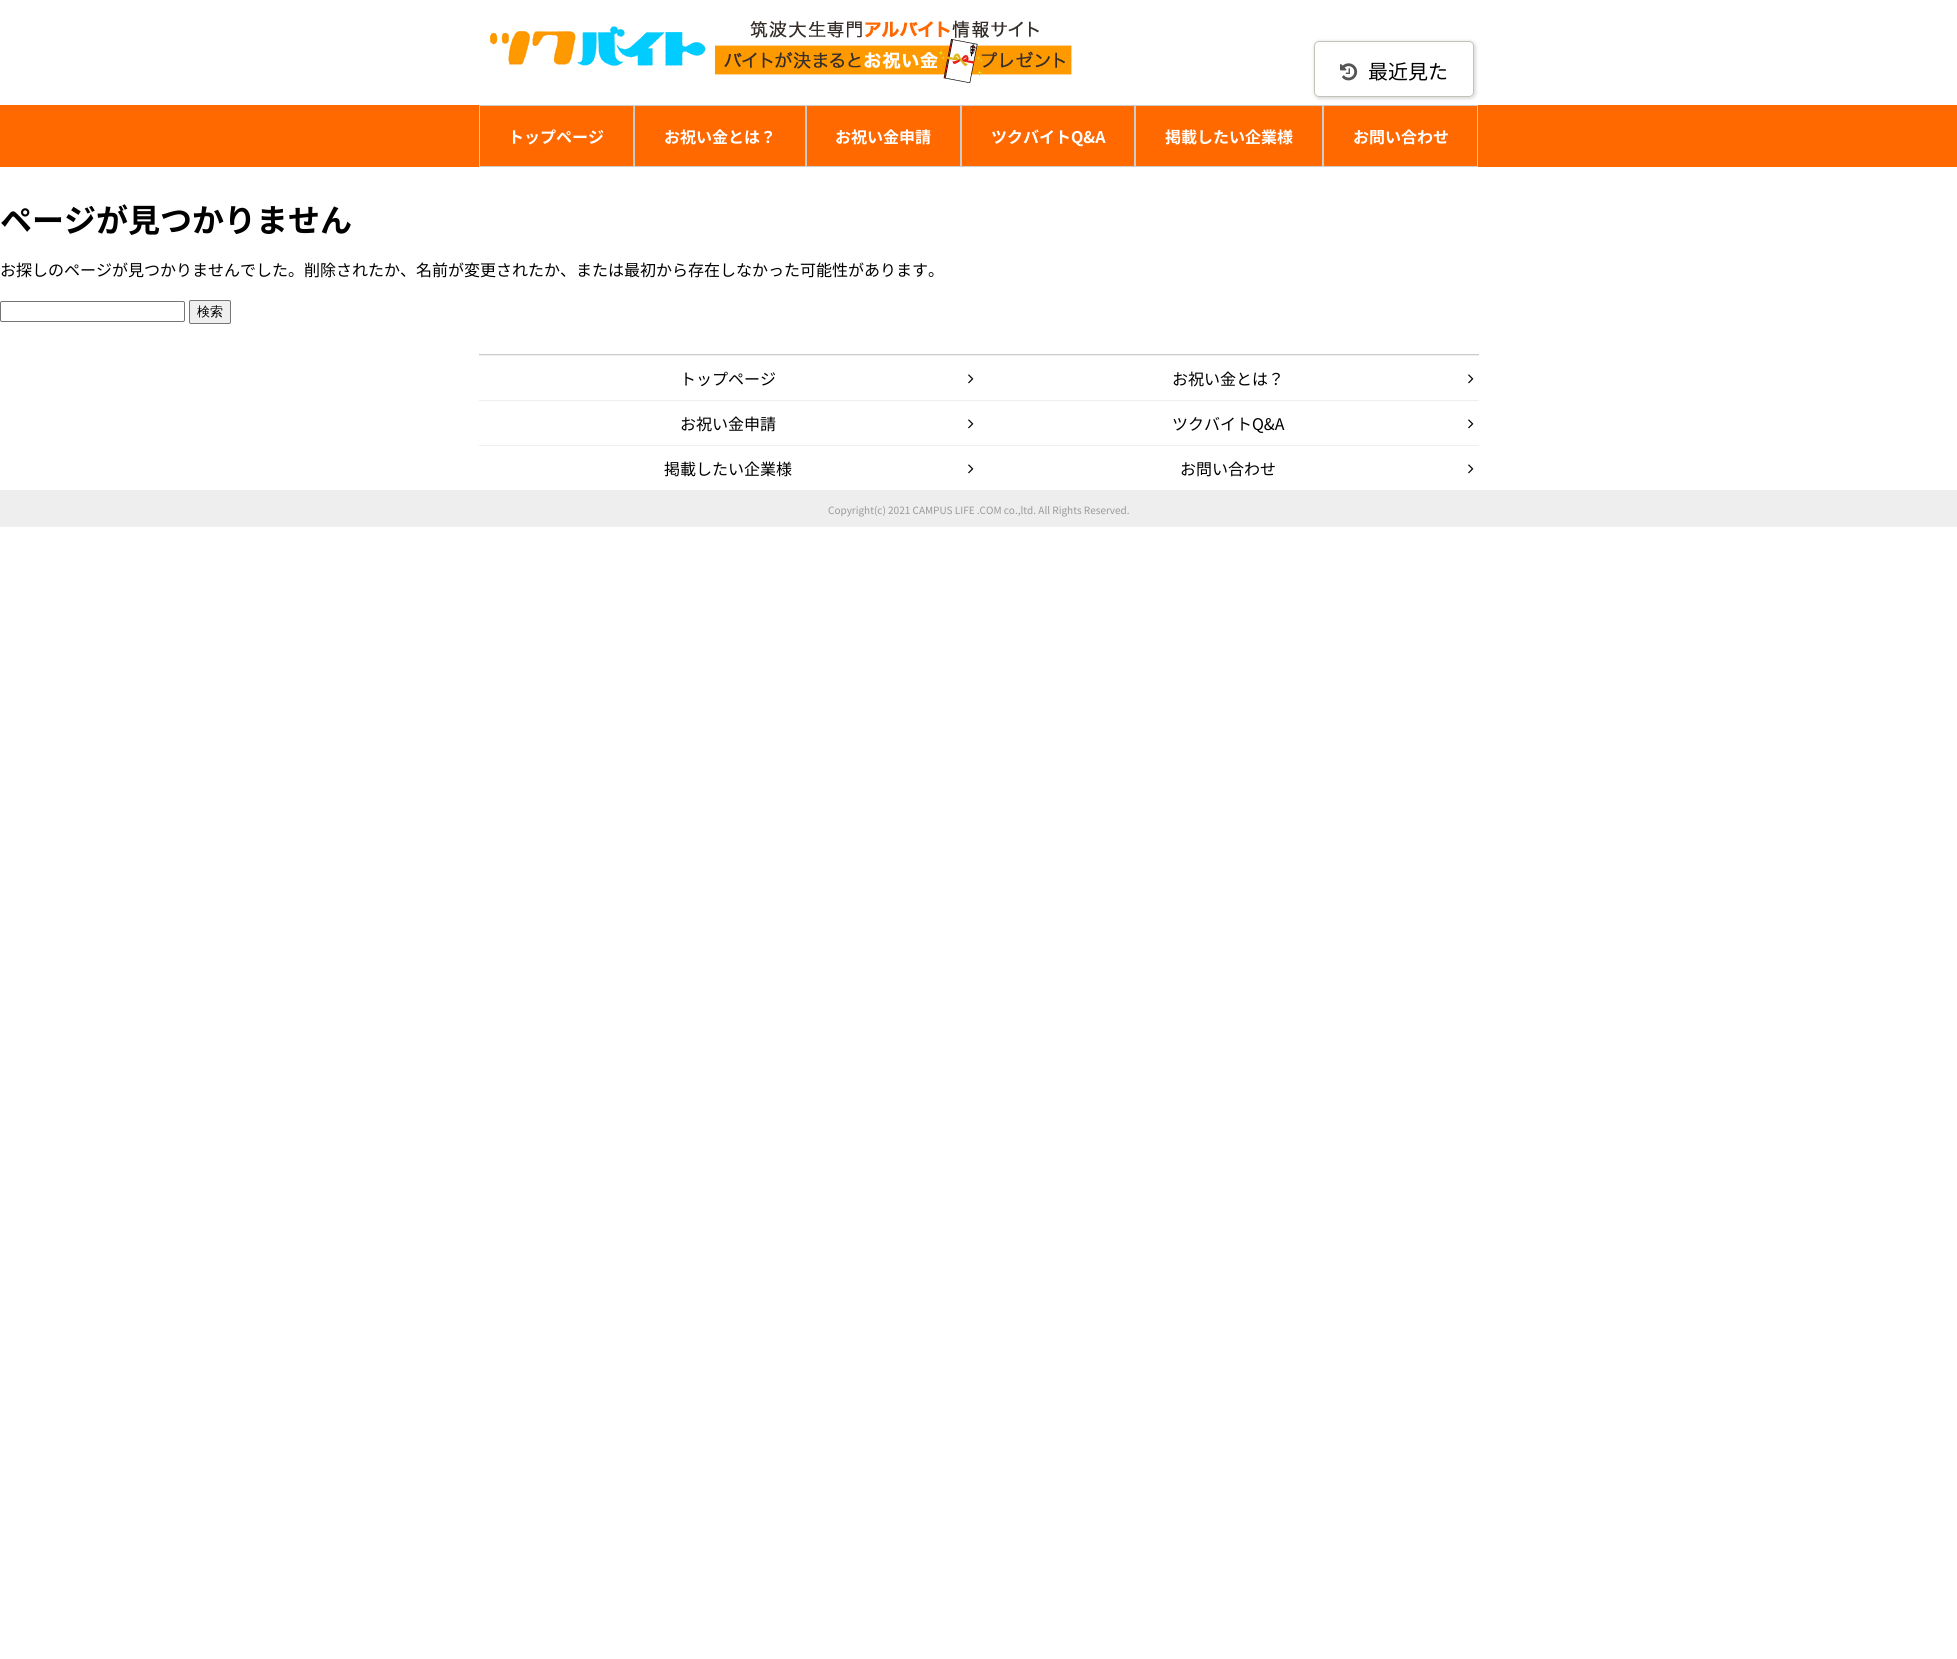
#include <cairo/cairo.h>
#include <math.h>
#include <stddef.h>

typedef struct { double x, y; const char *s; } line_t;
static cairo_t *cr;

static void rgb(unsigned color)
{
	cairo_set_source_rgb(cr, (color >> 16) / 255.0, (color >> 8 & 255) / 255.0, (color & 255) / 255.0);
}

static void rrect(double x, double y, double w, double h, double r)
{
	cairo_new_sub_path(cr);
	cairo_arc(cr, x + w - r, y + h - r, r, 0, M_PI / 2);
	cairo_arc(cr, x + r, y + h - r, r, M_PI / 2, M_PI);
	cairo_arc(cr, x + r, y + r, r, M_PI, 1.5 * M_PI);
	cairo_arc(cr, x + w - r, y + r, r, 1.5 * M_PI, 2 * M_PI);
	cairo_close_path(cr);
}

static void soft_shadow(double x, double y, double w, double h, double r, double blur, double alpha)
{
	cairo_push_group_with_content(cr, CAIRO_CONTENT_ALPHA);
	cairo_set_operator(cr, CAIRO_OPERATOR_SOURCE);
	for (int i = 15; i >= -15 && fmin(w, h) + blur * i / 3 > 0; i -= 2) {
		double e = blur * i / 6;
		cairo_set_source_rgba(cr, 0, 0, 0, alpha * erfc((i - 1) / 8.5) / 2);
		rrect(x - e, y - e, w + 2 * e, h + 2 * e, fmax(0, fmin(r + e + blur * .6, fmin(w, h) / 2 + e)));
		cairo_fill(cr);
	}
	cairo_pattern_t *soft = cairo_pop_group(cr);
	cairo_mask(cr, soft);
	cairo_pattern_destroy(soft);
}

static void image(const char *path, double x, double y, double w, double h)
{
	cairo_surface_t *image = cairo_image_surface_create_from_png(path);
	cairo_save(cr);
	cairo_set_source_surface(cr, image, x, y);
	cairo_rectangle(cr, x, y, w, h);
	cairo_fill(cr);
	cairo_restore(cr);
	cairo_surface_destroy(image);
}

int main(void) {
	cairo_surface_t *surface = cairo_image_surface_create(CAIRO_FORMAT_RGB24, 1957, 1659);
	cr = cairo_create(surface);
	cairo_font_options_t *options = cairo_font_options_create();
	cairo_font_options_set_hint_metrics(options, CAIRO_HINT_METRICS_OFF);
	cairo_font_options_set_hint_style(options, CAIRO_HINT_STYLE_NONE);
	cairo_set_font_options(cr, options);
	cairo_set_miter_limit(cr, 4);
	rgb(0xffffff);
	cairo_paint(cr);
	image("img/1.png", 490, 20, 582, 63);
	cairo_save(cr);
	cairo_set_fill_rule(cr, CAIRO_FILL_RULE_EVEN_ODD);
	cairo_new_path(cr);
	cairo_move_to(cr, 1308, 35);
	cairo_line_to(cr, 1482, 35);
	cairo_line_to(cr, 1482, 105);
	cairo_line_to(cr, 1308, 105);
	cairo_close_path(cr);
	cairo_move_to(cr, 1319, 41);
	cairo_line_to(cr, 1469, 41);
	cairo_curve_to(cr, 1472, 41, 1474, 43, 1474, 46);
	cairo_line_to(cr, 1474, 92);
	cairo_curve_to(cr, 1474, 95, 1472, 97, 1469, 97);
	cairo_line_to(cr, 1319, 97);
	cairo_curve_to(cr, 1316, 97, 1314, 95, 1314, 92);
	cairo_line_to(cr, 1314, 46);
	cairo_curve_to(cr, 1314, 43, 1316, 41, 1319, 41);
	cairo_close_path(cr);
	cairo_clip(cr);
	rgb(0xdcdcdc);
	soft_shadow(1314, 41, 162, 58, 6, 1.5, 1);
	cairo_restore(cr);
	rrect(1314.5, 41.5, 159, 55, 4.5);
	rgb(0xc4c2ba);
	cairo_set_line_width(cr, 1);
	cairo_stroke(cr);
	image("img/2.png", 1340, 63, 18, 18);
	rgb(0xff6900);
	cairo_rectangle(cr, 0, 105, 1957, 62);
	cairo_fill(cr);
	cairo_rectangle(cr, 479.5, 105.5, 154, 61);
	rgb(0xcccccc);
	cairo_stroke(cr);
	cairo_rectangle(cr, 634.5, 105.5, 171, 61);
	cairo_stroke(cr);
	cairo_rectangle(cr, 806.5, 105.5, 154, 61);
	cairo_stroke(cr);
	cairo_rectangle(cr, 961.5, 105.5, 173, 61);
	cairo_stroke(cr);
	cairo_rectangle(cr, 1135.5, 105.5, 187, 61);
	cairo_stroke(cr);
	cairo_rectangle(cr, 1323.5, 105.5, 154, 61);
	cairo_stroke(cr);
	rrect(0.5, 301.5, 184, 20, 1.5);
	rgb(0x767676);
	cairo_stroke(cr);
	rgb(0xefefef);
	rrect(189.5, 300.5, 41, 23, 1.5);
	cairo_fill_preserve(cr);
	rgb(0x767676);
	cairo_stroke(cr);
	rgb(0xcccccc);
	cairo_rectangle(cr, 479, 354, 1000, 1);
	cairo_fill(cr);
	rgb(0xeeeeee);
	cairo_rectangle(cr, 479, 355, 1000, 1);
	cairo_fill(cr);
	image("img/3.png", 968, 374, 6, 10);
	image("img/3.png", 1468, 374, 6, 10);
	cairo_rectangle(cr, 479, 400, 1000, 1);
	cairo_fill(cr);
	image("img/3.png", 968, 419, 6, 10);
	image("img/3.png", 1468, 419, 6, 10);
	cairo_rectangle(cr, 479, 445, 1000, 1);
	cairo_fill(cr);
	image("img/3.png", 968, 464, 6, 10);
	image("img/3.png", 1468, 464, 6, 10);
	cairo_rectangle(cr, 0, 490, 1957, 37);
	cairo_fill(cr);
	cairo_select_font_face(cr, "Noto Sans JP", CAIRO_FONT_SLANT_NORMAL, CAIRO_FONT_WEIGHT_NORMAL);
	cairo_set_font_size(cr, 20);
	rgb(0x000000);
	cairo_move_to(cr, 1368, 79);
	cairo_show_text(cr, "最近見た");
	cairo_select_font_face(cr, "Noto Sans JP", CAIRO_FONT_SLANT_NORMAL, CAIRO_FONT_WEIGHT_BOLD);
	cairo_set_font_size(cr, 16);
	rgb(0xffffff);
	{
		static const line_t items[] = {
			{508, 143, "トップページ"},
			{664, 143, "お祝い金とは？"},
			{835, 143, "お祝い金申請"},
			{991, 143, "ツクバイトQ&A"},
			{1165, 143, "掲載したい企業様"},
			{1353, 143, "お問い合わせ"},
		};
		for (size_t i = 0; i < sizeof items / sizeof *items; i++) {
			cairo_move_to(cr, items[i].x, items[i].y);
			cairo_show_text(cr, items[i].s);
		}
	}
	cairo_set_font_size(cr, 32);
	rgb(0x000000);
	cairo_move_to(cr, 0, 232);
	cairo_show_text(cr, "ページが見つかりません");
	cairo_select_font_face(cr, "Noto Sans JP", CAIRO_FONT_SLANT_NORMAL, CAIRO_FONT_WEIGHT_NORMAL);
	cairo_set_font_size(cr, 16);
	cairo_move_to(cr, 0, 276);
	cairo_show_text(cr, "お探しのページが見つかりませんでした。削除されたか、名前が変更されたか、または最初から存在しなかった可能性があります。");
	cairo_select_font_face(cr, "WenQuanYi Zen Hei Medium", CAIRO_FONT_SLANT_NORMAL, CAIRO_FONT_WEIGHT_NORMAL);
	cairo_set_font_size(cr, 13);
	cairo_move_to(cr, 197, 316);
	cairo_show_text(cr, "検索");
	cairo_select_font_face(cr, "Noto Sans JP", CAIRO_FONT_SLANT_NORMAL, CAIRO_FONT_WEIGHT_NORMAL);
	cairo_set_font_size(cr, 16);
	{
		static const line_t items[] = {
			{680, 385, "トップページ"},
			{1172, 385, "お祝い金とは？"},
			{680, 430, "お祝い金申請"},
			{1172, 430, "ツクバイトQ&A"},
			{664, 475, "掲載したい企業様"},
			{1180, 475, "お問い合わせ"},
		};
		for (size_t i = 0; i < sizeof items / sizeof *items; i++) {
			cairo_move_to(cr, items[i].x, items[i].y);
			cairo_show_text(cr, items[i].s);
		}
	}
	cairo_set_font_size(cr, 10);
	rgb(0x999999);
	cairo_move_to(cr, 828, 514);
	cairo_show_text(cr, "Copyright(c) 2021 CAMPUS LIFE .COM co.,ltd. All Rights Reserved.");
	cairo_surface_write_to_png(surface, "page.png");
	cairo_font_options_destroy(options);
	cairo_destroy(cr);
	cairo_surface_destroy(surface);
	return 0;
}
